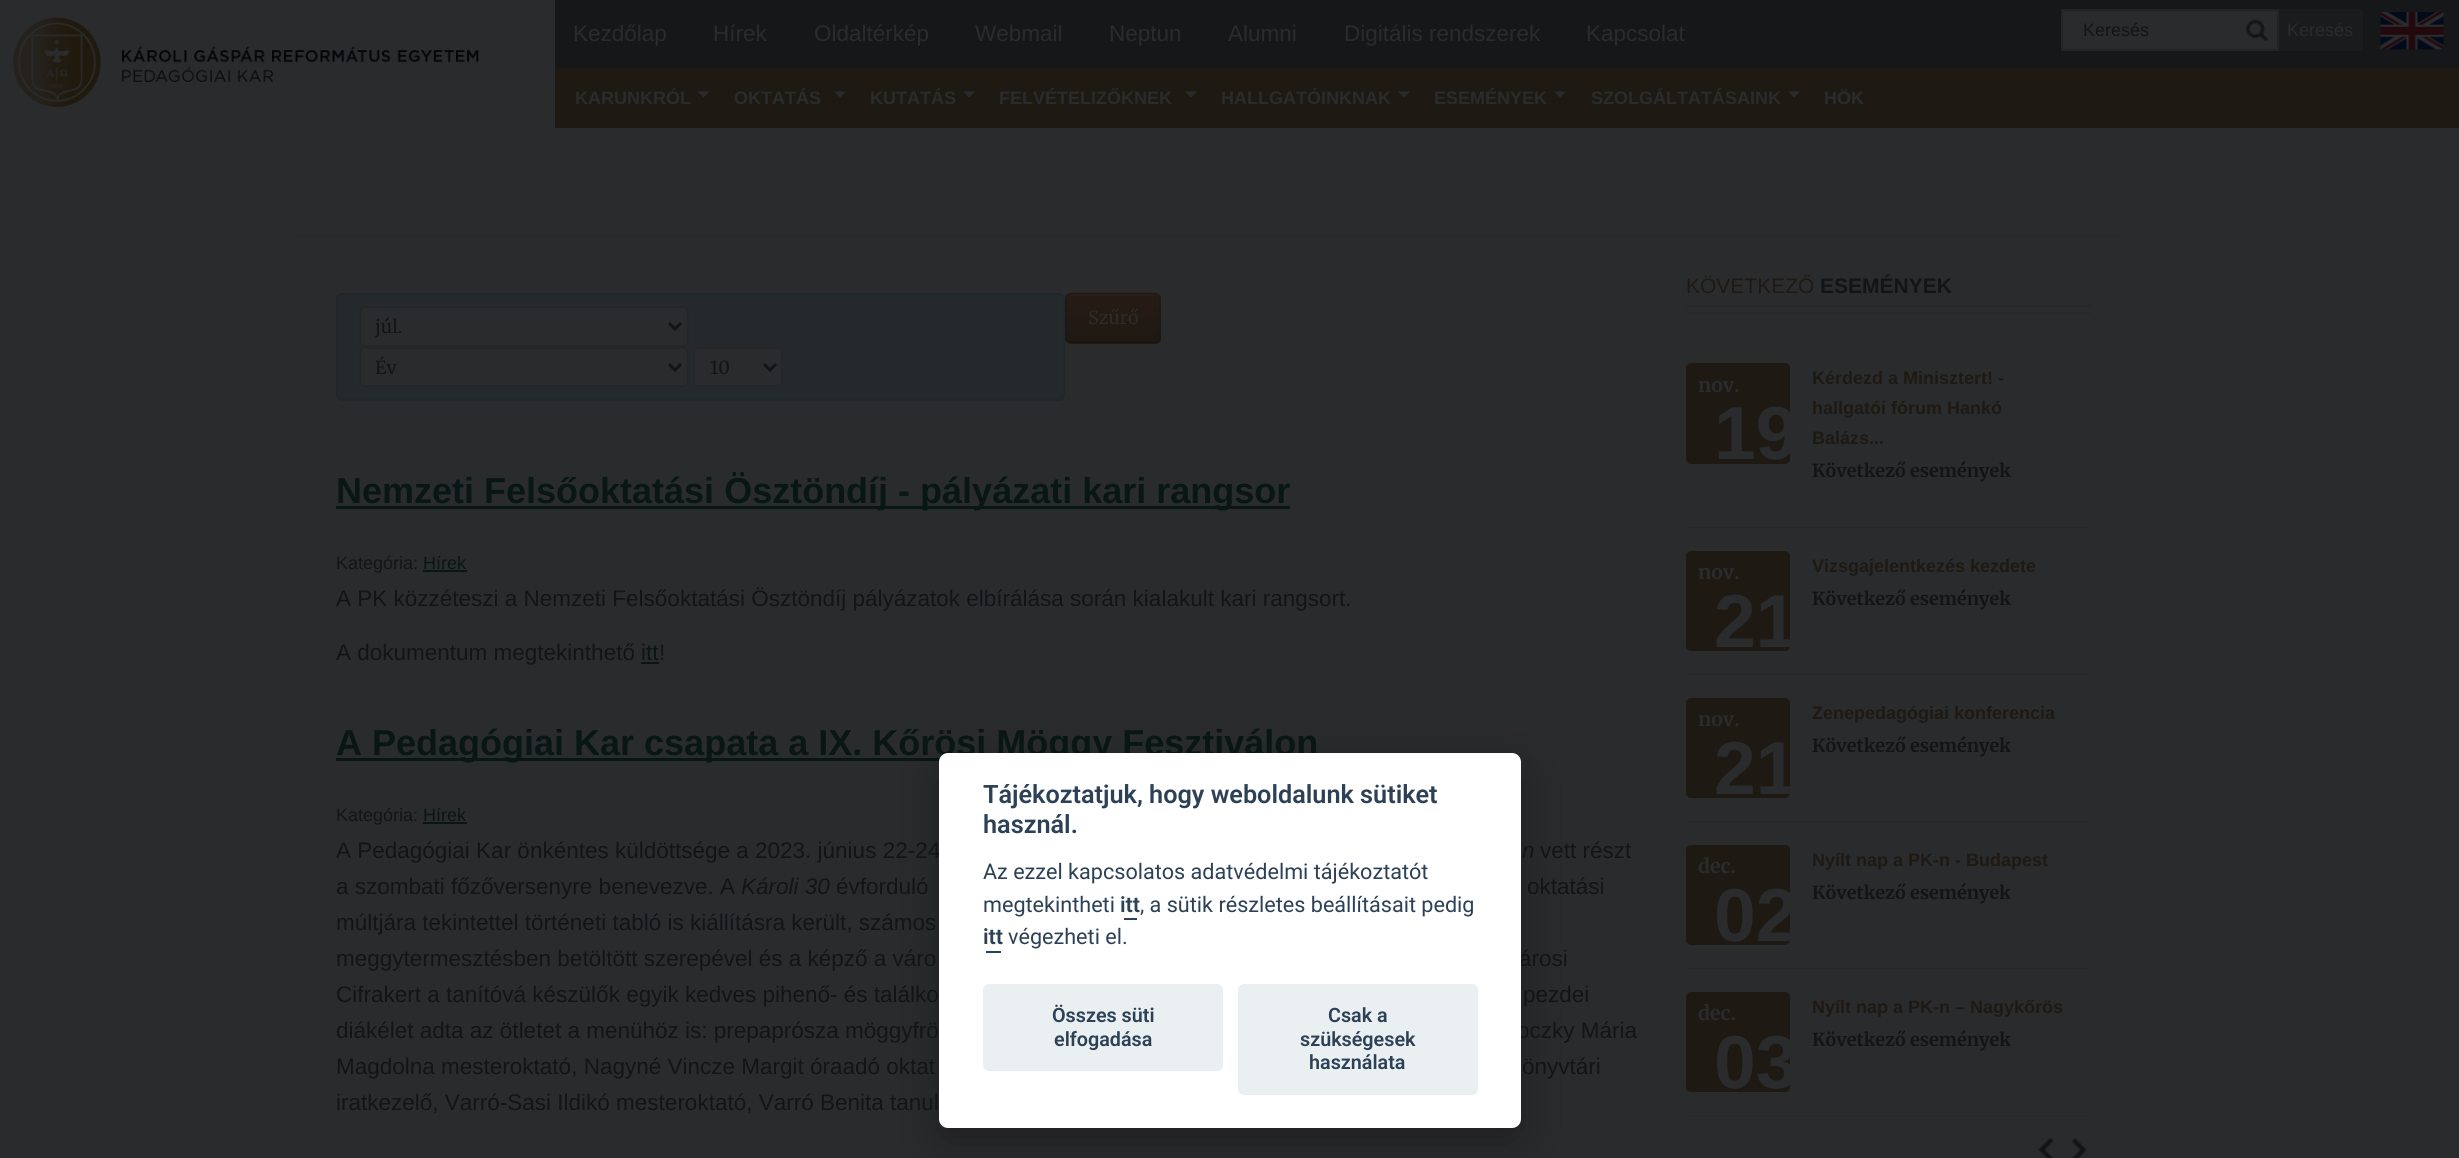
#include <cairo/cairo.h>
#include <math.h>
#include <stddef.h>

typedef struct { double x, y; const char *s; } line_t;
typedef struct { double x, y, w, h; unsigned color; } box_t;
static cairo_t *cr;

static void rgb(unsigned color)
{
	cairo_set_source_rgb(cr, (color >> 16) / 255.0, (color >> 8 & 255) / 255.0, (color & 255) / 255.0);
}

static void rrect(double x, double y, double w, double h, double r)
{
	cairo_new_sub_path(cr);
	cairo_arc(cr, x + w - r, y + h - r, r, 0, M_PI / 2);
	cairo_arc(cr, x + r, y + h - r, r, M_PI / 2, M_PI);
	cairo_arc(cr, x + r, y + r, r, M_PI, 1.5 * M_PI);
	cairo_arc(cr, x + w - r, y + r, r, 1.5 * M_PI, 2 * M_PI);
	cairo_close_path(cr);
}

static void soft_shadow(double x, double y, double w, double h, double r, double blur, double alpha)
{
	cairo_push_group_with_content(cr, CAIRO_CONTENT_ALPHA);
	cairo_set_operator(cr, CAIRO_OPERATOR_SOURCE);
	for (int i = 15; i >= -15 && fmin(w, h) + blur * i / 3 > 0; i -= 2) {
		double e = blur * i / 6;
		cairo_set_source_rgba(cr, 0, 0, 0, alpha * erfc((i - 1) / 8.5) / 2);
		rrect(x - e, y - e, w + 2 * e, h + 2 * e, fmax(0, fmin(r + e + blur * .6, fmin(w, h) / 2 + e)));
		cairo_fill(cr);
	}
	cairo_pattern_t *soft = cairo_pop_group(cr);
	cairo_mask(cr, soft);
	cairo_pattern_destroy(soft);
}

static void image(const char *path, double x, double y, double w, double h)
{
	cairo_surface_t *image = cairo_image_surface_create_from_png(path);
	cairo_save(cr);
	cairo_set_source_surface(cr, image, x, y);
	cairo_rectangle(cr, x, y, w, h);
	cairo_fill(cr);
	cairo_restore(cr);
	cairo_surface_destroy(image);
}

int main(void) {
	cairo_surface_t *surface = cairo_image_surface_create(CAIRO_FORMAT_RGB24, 2459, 1158);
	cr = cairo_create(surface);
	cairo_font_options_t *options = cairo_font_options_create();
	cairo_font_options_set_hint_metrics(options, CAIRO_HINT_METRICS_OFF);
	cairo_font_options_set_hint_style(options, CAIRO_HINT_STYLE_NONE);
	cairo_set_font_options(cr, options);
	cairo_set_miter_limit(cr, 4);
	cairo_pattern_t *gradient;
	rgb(0x2a2b2d);
	cairo_paint(cr);
	image("img/1.png", 13, 17, 466, 90);
	rgb(0x151718);
	cairo_rectangle(cr, 555, 0, 1904, 68);
	cairo_fill(cr);
	rgb(0x2a2b2d);
	cairo_rectangle(cr, 2063, 13, 214, 36);
	cairo_fill(cr);
	image("img/2.png", 2245, 19, 23, 23);
	rgb(0x27292a);
	cairo_rectangle(cr, 2063, 11, 214, 2);
	cairo_fill(cr);
	cairo_rectangle(cr, 2062, 10, 216, 40);
	rgb(0x222425);
	cairo_stroke(cr);
	rgb(0x191b1c);
	cairo_rectangle(cr, 2279, 9, 84, 42);
	cairo_fill(cr);
	image("img/3.png", 2380, 12, 64, 38);
	rgb(0x1e1913);
	cairo_rectangle(cr, 555, 68, 1904, 60);
	cairo_fill(cr);
	rgb(0x2a2b2d);
	cairo_new_path(cr);
	cairo_move_to(cr, 697.5, 91.5);
	cairo_line_to(cr, 709.5, 91.5);
	cairo_line_to(cr, 703.5, 97.5);
	cairo_close_path(cr);
	cairo_fill(cr);
	cairo_new_path(cr);
	cairo_move_to(cr, 834, 91.5);
	cairo_line_to(cr, 846, 91.5);
	cairo_line_to(cr, 840, 97.5);
	cairo_close_path(cr);
	cairo_fill(cr);
	cairo_new_path(cr);
	cairo_move_to(cr, 963, 91.5);
	cairo_line_to(cr, 975, 91.5);
	cairo_line_to(cr, 969, 97.5);
	cairo_close_path(cr);
	cairo_fill(cr);
	cairo_new_path(cr);
	cairo_move_to(cr, 1185, 91.5);
	cairo_line_to(cr, 1197, 91.5);
	cairo_line_to(cr, 1191, 97.5);
	cairo_close_path(cr);
	cairo_fill(cr);
	cairo_new_path(cr);
	cairo_move_to(cr, 1398, 91.5);
	cairo_line_to(cr, 1410, 91.5);
	cairo_line_to(cr, 1404, 97.5);
	cairo_close_path(cr);
	cairo_fill(cr);
	cairo_new_path(cr);
	cairo_move_to(cr, 1554, 91.5);
	cairo_line_to(cr, 1566, 91.5);
	cairo_line_to(cr, 1560, 97.5);
	cairo_close_path(cr);
	cairo_fill(cr);
	cairo_new_path(cr);
	cairo_move_to(cr, 1788, 91.5);
	cairo_line_to(cr, 1800, 91.5);
	cairo_line_to(cr, 1794, 97.5);
	cairo_close_path(cr);
	cairo_fill(cr);
	rgb(0x27292b);
	cairo_rectangle(cr, 291, 236, 1833, 1);
	cairo_fill(cr);
	rgb(0x24292c);
	rrect(337, 294, 727, 106, 5);
	cairo_fill_preserve(cr);
	rgb(0x20282b);
	cairo_stroke(cr);
	rgb(0x2a2b2d);
	rrect(360, 307, 328, 39, 5);
	cairo_fill_preserve(cr);
	rgb(0x252628);
	cairo_stroke(cr);
	cairo_new_path(cr);
	cairo_move_to(cr, 669, 323);
	cairo_line_to(cr, 675, 329);
	cairo_line_to(cr, 681, 323);
	rgb(0x131416);
	cairo_set_line_width(cr, 3);
	cairo_stroke(cr);
	rgb(0x2a2b2d);
	rrect(360, 348, 328, 38, 5);
	cairo_fill_preserve(cr);
	rgb(0x252628);
	cairo_set_line_width(cr, 2);
	cairo_stroke(cr);
	cairo_new_path(cr);
	cairo_move_to(cr, 669, 364);
	cairo_line_to(cr, 675, 370);
	cairo_line_to(cr, 681, 364);
	rgb(0x131416);
	cairo_set_line_width(cr, 3);
	cairo_stroke(cr);
	rgb(0x2a2b2d);
	rrect(694, 348, 88, 38, 5);
	cairo_fill_preserve(cr);
	rgb(0x252628);
	cairo_set_line_width(cr, 2);
	cairo_stroke(cr);
	cairo_new_path(cr);
	cairo_move_to(cr, 764, 364);
	cairo_line_to(cr, 770, 370);
	cairo_line_to(cr, 776, 364);
	rgb(0x131416);
	cairo_set_line_width(cr, 3);
	cairo_stroke(cr);
	rgb(0x271812);
	rrect(1065, 293, 96, 51, 6);
	cairo_fill(cr);
	cairo_save(cr);
	rrect(1065, 293, 96, 51, 6);
	cairo_clip(cr);
	gradient = cairo_pattern_create_linear(1113, 294, 1113, 342);
	cairo_pattern_add_color_stop_rgba(gradient, 0, 0.153, 0.102, 0.082, 1);
	cairo_pattern_add_color_stop_rgba(gradient, 1, 0.118, 0.098, 0.075, 1);
	cairo_set_source(cr, gradient);
	cairo_pattern_destroy(gradient);
	cairo_rectangle(cr, 1065, 294, 96, 48);
	cairo_fill(cr);
	cairo_restore(cr);
	cairo_set_source_rgba(cr, 0.165, 0.169, 0.176, 0.2);
	cairo_new_path(cr);
	cairo_move_to(cr, 1071, 296);
	cairo_line_to(cr, 1155, 296);
	cairo_curve_to(cr, 1157, 296, 1160, 298, 1160, 300);
	cairo_line_to(cr, 1160, 299);
	cairo_curve_to(cr, 1160, 296, 1158, 294, 1155, 294);
	cairo_line_to(cr, 1072, 294);
	cairo_curve_to(cr, 1070, 294, 1068, 296, 1067, 298);
	cairo_curve_to(cr, 1068, 297, 1070, 296, 1071, 296);
	cairo_close_path(cr);
	cairo_fill(cr);
	cairo_new_path(cr);
	cairo_move_to(cr, 1158.5, 341);
	cairo_line_to(cr, 1155.5, 342.5);
	cairo_line_to(cr, 1070.5, 342.5);
	cairo_line_to(cr, 1067.5, 341);
	cairo_set_source_rgba(cr, 0.012, 0.02, 0.027, 0.25);
	cairo_set_line_width(cr, 1.5);
	cairo_stroke(cr);
	cairo_new_path(cr);
	cairo_move_to(cr, 1067.5, 341);
	cairo_curve_to(cr, 1066.5, 340, 1066, 339, 1066, 337.5);
	cairo_line_to(cr, 1066, 298.5);
	cairo_curve_to(cr, 1066, 297, 1066.5, 296, 1067.5, 295);
	cairo_curve_to(cr, 1068.5, 294, 1069.5, 293, 1071, 293);
	cairo_line_to(cr, 1155, 293);
	cairo_curve_to(cr, 1156.5, 293, 1157.5, 294, 1158.5, 295);
	cairo_curve_to(cr, 1159.5, 296, 1160, 297, 1160, 298.5);
	cairo_line_to(cr, 1160, 337.5);
	cairo_curve_to(cr, 1160, 339, 1159.5, 340, 1158.5, 341);
	cairo_set_source_rgba(cr, 0.012, 0.02, 0.027, 0.1);
	cairo_stroke(cr);
	{
		static const box_t items[] = {
			{336, 506, 954, 3, 0x081614},
			{423, 570, 44, 2, 0x081614},
			{641, 662, 18, 2, 0x081614},
			{336, 758, 604, 3, 0x081614},
			{423, 822, 44, 2, 0x081614},
			{1686, 305, 405, 2, 0x26282a},
			{1686, 312, 405, 2, 0x27292b},
			{1686, 527, 405, 1, 0x26282a},
		};
		for (size_t i = 0; i < sizeof items / sizeof *items; i++) {
			rgb(items[i].color);
			cairo_rectangle(cr, items[i].x, items[i].y, items[i].w, items[i].h);
			cairo_fill(cr);
		}
	}
	rgb(0x1e1913);
	rrect(1686, 363, 104, 101, 5);
	cairo_fill(cr);
	rgb(0x26282a);
	cairo_rectangle(cr, 1686, 674, 405, 1);
	cairo_fill(cr);
	rgb(0x1e1913);
	rrect(1686, 551, 104, 100, 5);
	cairo_fill(cr);
	rgb(0x26282a);
	cairo_rectangle(cr, 1686, 821, 405, 1);
	cairo_fill(cr);
	rgb(0x1e1913);
	rrect(1686, 698, 104, 100, 5);
	cairo_fill(cr);
	rgb(0x26282a);
	cairo_rectangle(cr, 1686, 968, 405, 1);
	cairo_fill(cr);
	rgb(0x1e1913);
	rrect(1686, 845, 104, 100, 5);
	cairo_fill(cr);
	rgb(0x26282a);
	cairo_rectangle(cr, 1686, 1115, 405, 1);
	cairo_fill(cr);
	rgb(0x1e1913);
	rrect(1686, 992, 104, 100, 5);
	cairo_fill(cr);
	image("img/4.png", 2038, 1138, 16, 20);
	image("img/5.png", 2071, 1138, 16, 20);
	rgb(0x020203);
	soft_shadow(939, 768, 582, 375, 9, 22.5, 0.28);
	cairo_select_font_face(cr, "Liberation Sans", CAIRO_FONT_SLANT_NORMAL, CAIRO_FONT_WEIGHT_NORMAL);
	cairo_set_font_size(cr, 22.5);
	rgb(0x2a2b2d);
	{
		static const line_t items[] = {
			{573, 41, "Kezdőlap"},
			{713, 41, "Hírek"},
			{814, 41, "Oldaltérkép"},
			{975, 41, "Webmail"},
			{1109, 41, "Neptun"},
			{1228, 41, "Alumni"},
			{1344, 41, "Digitális rendszerek"},
			{1586, 41, "Kapcsolat"},
		};
		for (size_t i = 0; i < sizeof items / sizeof *items; i++) {
			cairo_move_to(cr, items[i].x, items[i].y);
			cairo_show_text(cr, items[i].s);
		}
	}
	cairo_set_font_size(cr, 18);
	rgb(0x131416);
	cairo_move_to(cr, 2083, 36);
	cairo_show_text(cr, "Keresés");
	rgb(0x2a2b2d);
	cairo_move_to(cr, 2287, 36);
	cairo_show_text(cr, "Keresés");
	cairo_select_font_face(cr, "Liberation Sans", CAIRO_FONT_SLANT_NORMAL, CAIRO_FONT_WEIGHT_BOLD);
	{
		static const line_t items[] = {
			{575, 104, "KARUNKRÓL"},
			{734, 104, "OKTATÁS"},
			{870, 104, "KUTATÁS"},
			{999, 104, "FELVÉTELIZŐKNEK"},
			{1221, 104, "HALLGATÓINKNAK"},
			{1434, 104, "ESEMÉNYEK"},
			{1591, 104, "SZOLGÁLTATÁSAINK"},
			{1824, 104, "HÖK"},
		};
		for (size_t i = 0; i < sizeof items / sizeof *items; i++) {
			cairo_move_to(cr, items[i].x, items[i].y);
			cairo_show_text(cr, items[i].s);
		}
	}
	cairo_select_font_face(cr, "Merriweather", CAIRO_FONT_SLANT_NORMAL, CAIRO_FONT_WEIGHT_NORMAL);
	rgb(0x131416);
	{
		static const line_t items[] = {
			{375, 333, "júl."},
			{375, 374, "Év"},
			{710, 374, "10"},
		};
		for (size_t i = 0; i < sizeof items / sizeof *items; i++) {
			cairo_move_to(cr, items[i].x, items[i].y);
			cairo_show_text(cr, items[i].s);
		}
	}
	rgb(0x2a2b2d);
	cairo_move_to(cr, 1088, 324);
	cairo_show_text(cr, "Szűrő");
	cairo_select_font_face(cr, "Liberation Sans", CAIRO_FONT_SLANT_NORMAL, CAIRO_FONT_WEIGHT_BOLD);
	cairo_set_font_size(cr, 36);
	rgb(0x081614);
	cairo_move_to(cr, 336, 503);
	cairo_show_text(cr, "Nemzeti Felsőoktatási Ösztöndíj - pályázati kari rangsor");
	cairo_select_font_face(cr, "Liberation Sans", CAIRO_FONT_SLANT_NORMAL, CAIRO_FONT_WEIGHT_NORMAL);
	cairo_set_font_size(cr, 18);
	rgb(0x131416);
	cairo_move_to(cr, 336, 569);
	cairo_show_text(cr, "Kategória:");
	rgb(0x081614);
	cairo_move_to(cr, 423, 569);
	cairo_show_text(cr, "Hírek");
	cairo_set_font_size(cr, 22.5);
	rgb(0x131416);
	cairo_move_to(cr, 336, 606);
	cairo_show_text(cr, "A PK közzéteszi a Nemzeti Felsőoktatási Ösztöndíj pályázatok elbírálása során kialakult kari rangsort.");
	cairo_move_to(cr, 336, 660);
	cairo_show_text(cr, "A dokumentum megtekinthető");
	rgb(0x081614);
	cairo_move_to(cr, 641, 660);
	cairo_show_text(cr, "itt");
	rgb(0x131416);
	cairo_move_to(cr, 659, 660);
	cairo_show_text(cr, "!");
	cairo_select_font_face(cr, "Liberation Sans", CAIRO_FONT_SLANT_NORMAL, CAIRO_FONT_WEIGHT_BOLD);
	cairo_set_font_size(cr, 36);
	rgb(0x081614);
	cairo_move_to(cr, 336, 755);
	cairo_show_text(cr, "A Pedagógiai Kar csapata a IX. Kőrösi Möggy Fesztiválon");
	cairo_select_font_face(cr, "Liberation Sans", CAIRO_FONT_SLANT_NORMAL, CAIRO_FONT_WEIGHT_NORMAL);
	cairo_set_font_size(cr, 18);
	rgb(0x131416);
	cairo_move_to(cr, 336, 821);
	cairo_show_text(cr, "Kategória:");
	rgb(0x081614);
	cairo_move_to(cr, 423, 821);
	cairo_show_text(cr, "Hírek");
	cairo_set_font_size(cr, 22.5);
	rgb(0x131416);
	cairo_move_to(cr, 336, 858);
	cairo_show_text(cr, "A Pedagógiai Kar önkéntes küldöttsége a 2023. június 22-24");
	cairo_select_font_face(cr, "Liberation Sans", CAIRO_FONT_SLANT_ITALIC, CAIRO_FONT_WEIGHT_NORMAL);
	cairo_move_to(cr, 1522, 858);
	cairo_show_text(cr, "n");
	cairo_select_font_face(cr, "Liberation Sans", CAIRO_FONT_SLANT_NORMAL, CAIRO_FONT_WEIGHT_NORMAL);
	cairo_move_to(cr, 1540, 858);
	cairo_show_text(cr, "vett részt");
	cairo_move_to(cr, 336, 894);
	cairo_show_text(cr, "a szombati főzőversenyre benevezve. A");
	cairo_select_font_face(cr, "Liberation Sans", CAIRO_FONT_SLANT_ITALIC, CAIRO_FONT_WEIGHT_NORMAL);
	cairo_move_to(cr, 741, 894);
	cairo_show_text(cr, "Károli 30");
	cairo_select_font_face(cr, "Liberation Sans", CAIRO_FONT_SLANT_NORMAL, CAIRO_FONT_WEIGHT_NORMAL);
	{
		static const line_t items[] = {
			{836, 894, "évforduló"},
			{1527, 894, "oktatási"},
			{336, 930, "múltjára tekintettel történeti tabló is kiállításra került, számos"},
			{336, 966, "meggytermesztésben betöltött szerepével és a képző a váro"},
			{1519, 966, "árosi"},
			{336, 1002, "Cifrakert a tanítóvá készülők egyik kedves pihenő- és találko"},
			{1523, 1002, "pezdei"},
			{336, 1038, "diákélet adta az ötletet a menühöz is: prepaprósza möggyfrö"},
			{1517, 1038, "oczky Mária"},
			{336, 1074, "Magdolna mesteroktató, Nagyné Vincze Margit óraadó oktat"},
			{1522, 1074, "önyvtári"},
			{336, 1110, "iratkezelő, Varró-Sasi Ildikó mesteroktató, Varró Benita tanul"},
		};
		for (size_t i = 0; i < sizeof items / sizeof *items; i++) {
			cairo_move_to(cr, items[i].x, items[i].y);
			cairo_show_text(cr, items[i].s);
		}
	}
	cairo_set_font_size(cr, 21);
	rgb(0x1e1913);
	cairo_move_to(cr, 1686, 293);
	cairo_show_text(cr, "KÖVETKEZŐ");
	cairo_select_font_face(cr, "Liberation Sans", CAIRO_FONT_SLANT_NORMAL, CAIRO_FONT_WEIGHT_BOLD);
	rgb(0x131416);
	cairo_move_to(cr, 1820, 293);
	cairo_show_text(cr, "ESEMÉNYEK");
	cairo_select_font_face(cr, "Merriweather", CAIRO_FONT_SLANT_NORMAL, CAIRO_FONT_WEIGHT_BOLD);
	cairo_set_font_size(cr, 19.5);
	rgb(0x2a2b2d);
	cairo_move_to(cr, 1698, 392);
	cairo_show_text(cr, "nov.");
	cairo_select_font_face(cr, "Liberation Sans", CAIRO_FONT_SLANT_NORMAL, CAIRO_FONT_WEIGHT_BOLD);
	cairo_set_font_size(cr, 75);
	cairo_move_to(cr, 1714, 459);
	cairo_show_text(cr, "19");
	cairo_set_font_size(cr, 18);
	rgb(0x1e1913);
	{
		static const line_t items[] = {
			{1812, 384, "Kérdezd a Minisztert! -"},
			{1812, 414, "hallgatói fórum Hankó"},
			{1812, 444, "Balázs..."},
		};
		for (size_t i = 0; i < sizeof items / sizeof *items; i++) {
			cairo_move_to(cr, items[i].x, items[i].y);
			cairo_show_text(cr, items[i].s);
		}
	}
	cairo_select_font_face(cr, "Merriweather", CAIRO_FONT_SLANT_NORMAL, CAIRO_FONT_WEIGHT_BOLD);
	rgb(0x131416);
	cairo_move_to(cr, 1812, 477);
	cairo_show_text(cr, "Következő események");
	cairo_set_font_size(cr, 19.5);
	rgb(0x2a2b2d);
	cairo_move_to(cr, 1698, 579);
	cairo_show_text(cr, "nov.");
	cairo_select_font_face(cr, "Liberation Sans", CAIRO_FONT_SLANT_NORMAL, CAIRO_FONT_WEIGHT_BOLD);
	cairo_set_font_size(cr, 75);
	cairo_move_to(cr, 1714, 647);
	cairo_show_text(cr, "21");
	cairo_set_font_size(cr, 18);
	rgb(0x1e1913);
	cairo_move_to(cr, 1812, 572);
	cairo_show_text(cr, "Vizsgajelentkezés kezdete");
	cairo_select_font_face(cr, "Merriweather", CAIRO_FONT_SLANT_NORMAL, CAIRO_FONT_WEIGHT_BOLD);
	rgb(0x131416);
	cairo_move_to(cr, 1812, 605);
	cairo_show_text(cr, "Következő események");
	cairo_set_font_size(cr, 19.5);
	rgb(0x2a2b2d);
	cairo_move_to(cr, 1698, 726);
	cairo_show_text(cr, "nov.");
	cairo_select_font_face(cr, "Liberation Sans", CAIRO_FONT_SLANT_NORMAL, CAIRO_FONT_WEIGHT_BOLD);
	cairo_set_font_size(cr, 75);
	cairo_move_to(cr, 1714, 794);
	cairo_show_text(cr, "21");
	cairo_set_font_size(cr, 18);
	rgb(0x1e1913);
	cairo_move_to(cr, 1812, 719);
	cairo_show_text(cr, "Zenepedagógiai konferencia");
	cairo_select_font_face(cr, "Merriweather", CAIRO_FONT_SLANT_NORMAL, CAIRO_FONT_WEIGHT_BOLD);
	rgb(0x131416);
	cairo_move_to(cr, 1812, 752);
	cairo_show_text(cr, "Következő események");
	cairo_set_font_size(cr, 19.5);
	rgb(0x2a2b2d);
	cairo_move_to(cr, 1698, 873);
	cairo_show_text(cr, "dec.");
	cairo_select_font_face(cr, "Liberation Sans", CAIRO_FONT_SLANT_NORMAL, CAIRO_FONT_WEIGHT_BOLD);
	cairo_set_font_size(cr, 75);
	cairo_move_to(cr, 1714, 941);
	cairo_show_text(cr, "02");
	cairo_set_font_size(cr, 18);
	rgb(0x1e1913);
	cairo_move_to(cr, 1812, 866);
	cairo_show_text(cr, "Nyílt nap a PK-n - Budapest");
	cairo_select_font_face(cr, "Merriweather", CAIRO_FONT_SLANT_NORMAL, CAIRO_FONT_WEIGHT_BOLD);
	rgb(0x131416);
	cairo_move_to(cr, 1812, 899);
	cairo_show_text(cr, "Következő események");
	cairo_set_font_size(cr, 19.5);
	rgb(0x2a2b2d);
	cairo_move_to(cr, 1698, 1020);
	cairo_show_text(cr, "dec.");
	cairo_select_font_face(cr, "Liberation Sans", CAIRO_FONT_SLANT_NORMAL, CAIRO_FONT_WEIGHT_BOLD);
	cairo_set_font_size(cr, 75);
	cairo_move_to(cr, 1714, 1088);
	cairo_show_text(cr, "03");
	cairo_set_font_size(cr, 18);
	rgb(0x1e1913);
	cairo_move_to(cr, 1812, 1013);
	cairo_show_text(cr, "Nyílt nap a PK-n – Nagykőrös");
	cairo_select_font_face(cr, "Merriweather", CAIRO_FONT_SLANT_NORMAL, CAIRO_FONT_WEIGHT_BOLD);
	rgb(0x131416);
	cairo_move_to(cr, 1812, 1046);
	cairo_show_text(cr, "Következő események");
	rgb(0xffffff);
	rrect(939, 753, 582, 375, 9);
	cairo_fill(cr);
	cairo_select_font_face(cr, "Roboto SemiBold", CAIRO_FONT_SLANT_NORMAL, CAIRO_FONT_WEIGHT_NORMAL);
	cairo_set_font_size(cr, 25.25);
	rgb(0x2d4156);
	cairo_move_to(cr, 983, 803);
	cairo_show_text(cr, "Tájékoztatjuk, hogy weboldalunk sütiket");
	cairo_move_to(cr, 983, 833);
	cairo_show_text(cr, "használ.");
	cairo_select_font_face(cr, "Roboto", CAIRO_FONT_SLANT_NORMAL, CAIRO_FONT_WEIGHT_NORMAL);
	cairo_set_font_size(cr, 21.6);
	cairo_move_to(cr, 983, 879);
	cairo_show_text(cr, "Az ezzel kapcsolatos adatvédelmi tájékoztatót");
	cairo_move_to(cr, 983, 912);
	cairo_show_text(cr, "megtekintheti");
	cairo_select_font_face(cr, "Roboto SemiBold", CAIRO_FONT_SLANT_NORMAL, CAIRO_FONT_WEIGHT_NORMAL);
	cairo_move_to(cr, 1120, 912);
	cairo_show_text(cr, "itt");
	cairo_rectangle(cr, 1124, 918, 13, 2);
	cairo_fill(cr);
	cairo_select_font_face(cr, "Roboto", CAIRO_FONT_SLANT_NORMAL, CAIRO_FONT_WEIGHT_NORMAL);
	cairo_move_to(cr, 1140, 912);
	cairo_show_text(cr, ", a sütik részletes beállításait pedig");
	cairo_select_font_face(cr, "Roboto SemiBold", CAIRO_FONT_SLANT_NORMAL, CAIRO_FONT_WEIGHT_NORMAL);
	cairo_move_to(cr, 983, 944);
	cairo_show_text(cr, "itt");
	cairo_rectangle(cr, 986, 951, 15, 2);
	cairo_fill(cr);
	cairo_select_font_face(cr, "Roboto", CAIRO_FONT_SLANT_NORMAL, CAIRO_FONT_WEIGHT_NORMAL);
	cairo_move_to(cr, 1008, 944);
	cairo_show_text(cr, "végezheti el.");
	rgb(0xeaeff2);
	rrect(983, 984, 240, 87, 6);
	cairo_fill(cr);
	cairo_select_font_face(cr, "Roboto SemiBold", CAIRO_FONT_SLANT_NORMAL, CAIRO_FONT_WEIGHT_NORMAL);
	cairo_set_font_size(cr, 19.75);
	rgb(0x2d4156);
	cairo_move_to(cr, 1052, 1022);
	cairo_show_text(cr, "Összes süti");
	cairo_move_to(cr, 1054, 1046);
	cairo_show_text(cr, "elfogadása");
	rgb(0xeaeff2);
	rrect(1238, 984, 240, 111, 6);
	cairo_fill(cr);
	rgb(0x2d4156);
	{
		static const line_t items[] = {
			{1328, 1022, "Csak a"},
			{1300, 1046, "szükségesek"},
			{1309, 1069, "használata"},
		};
		for (size_t i = 0; i < sizeof items / sizeof *items; i++) {
			cairo_move_to(cr, items[i].x, items[i].y);
			cairo_show_text(cr, items[i].s);
		}
	}
	cairo_surface_write_to_png(surface, "page.png");
	cairo_font_options_destroy(options);
	cairo_destroy(cr);
	cairo_surface_destroy(surface);
	return 0;
}
